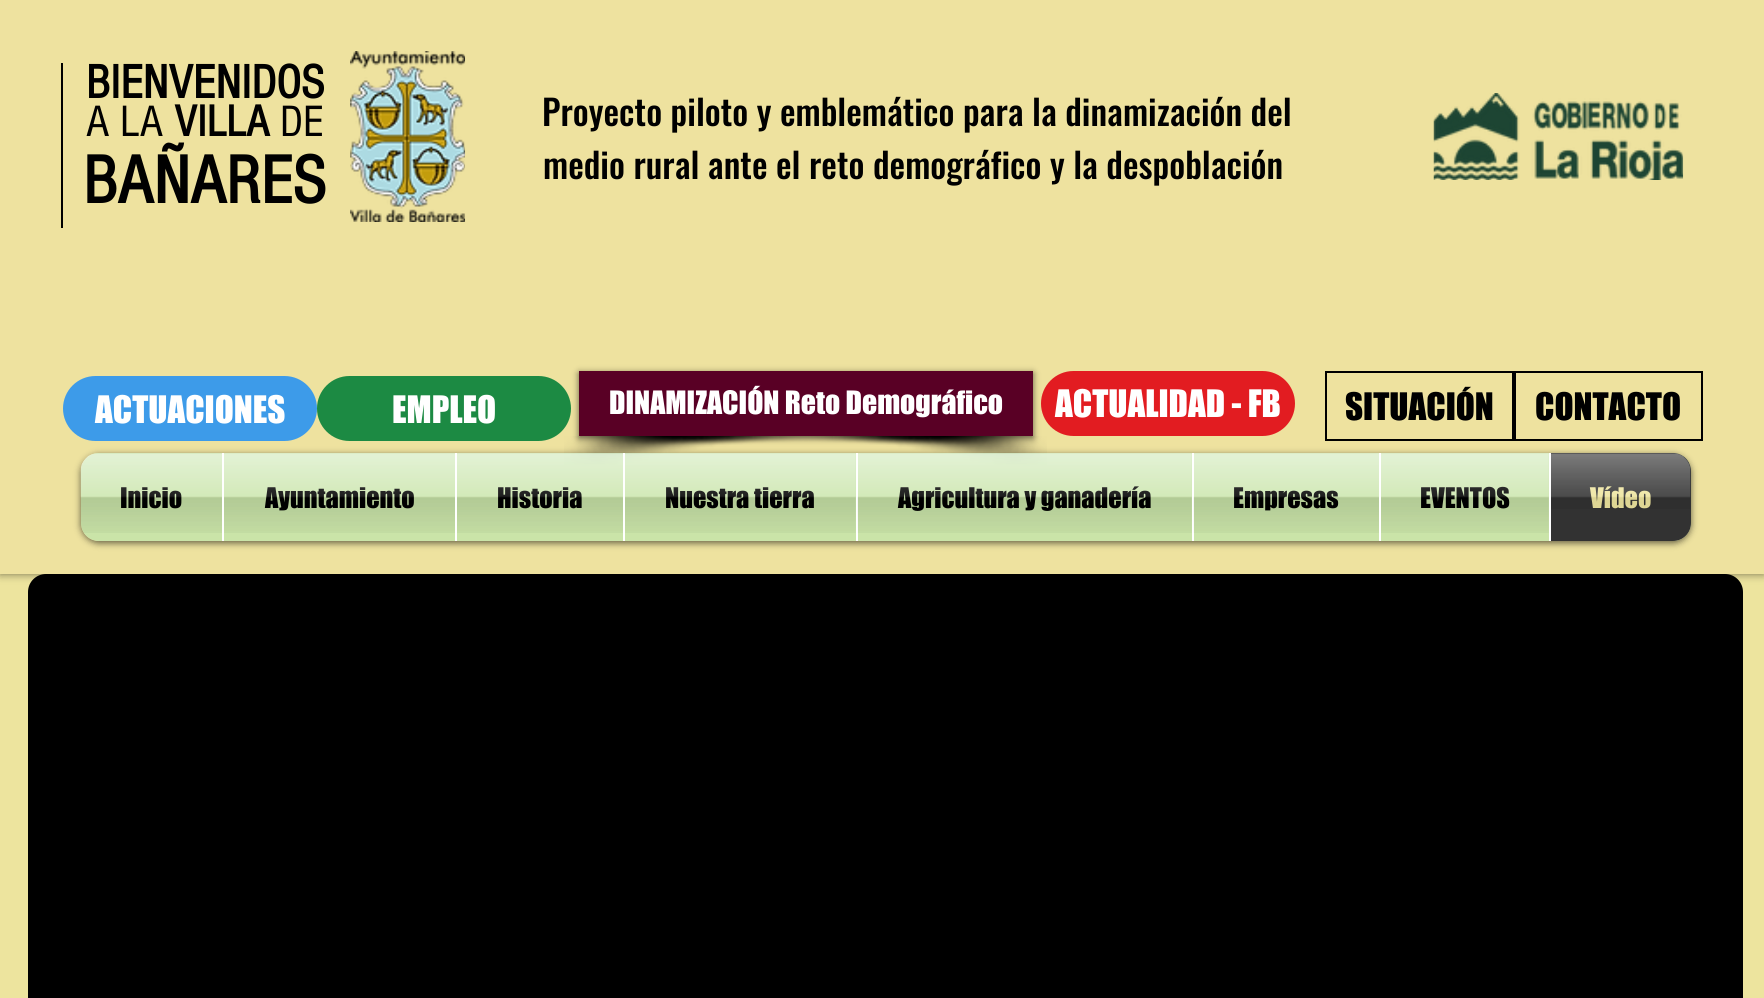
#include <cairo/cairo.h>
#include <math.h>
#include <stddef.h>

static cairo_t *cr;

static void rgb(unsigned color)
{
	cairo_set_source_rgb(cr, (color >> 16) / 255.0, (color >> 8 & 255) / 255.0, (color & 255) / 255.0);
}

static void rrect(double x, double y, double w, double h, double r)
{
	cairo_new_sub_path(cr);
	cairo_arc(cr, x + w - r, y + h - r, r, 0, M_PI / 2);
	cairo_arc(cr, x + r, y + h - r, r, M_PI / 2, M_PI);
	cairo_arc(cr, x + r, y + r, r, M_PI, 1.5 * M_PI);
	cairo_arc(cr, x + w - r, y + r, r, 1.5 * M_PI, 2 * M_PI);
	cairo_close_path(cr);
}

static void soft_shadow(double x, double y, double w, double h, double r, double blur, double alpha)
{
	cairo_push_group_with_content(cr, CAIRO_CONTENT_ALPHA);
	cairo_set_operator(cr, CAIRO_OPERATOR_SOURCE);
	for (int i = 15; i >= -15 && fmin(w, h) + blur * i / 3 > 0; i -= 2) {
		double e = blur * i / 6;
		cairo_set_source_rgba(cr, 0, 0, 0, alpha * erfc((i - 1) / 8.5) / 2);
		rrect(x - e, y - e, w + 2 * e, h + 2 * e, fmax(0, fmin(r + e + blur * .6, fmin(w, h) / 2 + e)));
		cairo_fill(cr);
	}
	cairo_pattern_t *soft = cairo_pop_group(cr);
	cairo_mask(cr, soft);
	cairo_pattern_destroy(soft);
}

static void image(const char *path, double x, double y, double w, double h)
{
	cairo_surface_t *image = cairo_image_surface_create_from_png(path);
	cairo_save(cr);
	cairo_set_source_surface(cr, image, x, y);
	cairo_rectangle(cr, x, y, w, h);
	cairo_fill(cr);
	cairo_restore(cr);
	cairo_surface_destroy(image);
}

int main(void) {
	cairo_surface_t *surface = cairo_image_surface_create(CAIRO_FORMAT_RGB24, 1764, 998);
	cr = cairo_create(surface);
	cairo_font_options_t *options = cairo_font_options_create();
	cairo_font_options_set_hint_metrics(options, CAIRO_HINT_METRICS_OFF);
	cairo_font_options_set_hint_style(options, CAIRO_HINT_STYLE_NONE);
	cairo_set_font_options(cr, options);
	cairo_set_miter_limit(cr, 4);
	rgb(0xede49e);
	cairo_paint(cr);
	rgb(0x000000);
	soft_shadow(0, 0, 1764, 574, 0, 4.5, 0.5);
	rgb(0xeee29f);
	cairo_rectangle(cr, 0, 0, 1764, 574);
	cairo_fill(cr);
	rgb(0x000000);
	cairo_rectangle(cr, 61, 63, 2, 165);
	cairo_fill(cr);
	image("img/1.png", 350, 51, 116, 171);
	image("img/2.png", 1433, 93, 251, 87);
	rgb(0x3d9be9);
	rrect(63, 376, 254, 65, 32.5);
	cairo_fill(cr);
	rgb(0x1c8a43);
	rrect(317, 376, 254, 65, 32.5);
	cairo_fill(cr);
	image("img/3.png", 564, 436, 269, 30);
	image("img/4.png", 779, 436, 268, 30);
	rgb(0x000000);
	soft_shadow(579, 373, 454, 65, 0, 3.5, 0.6);
	rgb(0x590025);
	cairo_rectangle(cr, 579, 371, 454, 65);
	cairo_fill(cr);
	rgb(0xe21c21);
	rrect(1041, 371, 254, 65, 32.5);
	cairo_fill(cr);
	cairo_rectangle(cr, 1326, 372, 187, 68);
	rgb(0x000000);
	cairo_stroke(cr);
	cairo_rectangle(cr, 1515, 372, 187, 68);
	cairo_stroke(cr);
	cairo_save(cr);
	cairo_set_fill_rule(cr, CAIRO_FILL_RULE_EVEN_ODD);
	cairo_new_path(cr);
	cairo_move_to(cr, 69, 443);
	cairo_line_to(cr, 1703, 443);
	cairo_line_to(cr, 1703, 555);
	cairo_line_to(cr, 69, 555);
	cairo_close_path(cr);
	cairo_move_to(cr, 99, 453);
	cairo_line_to(cr, 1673, 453);
	cairo_curve_to(cr, 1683, 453, 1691, 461, 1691, 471);
	cairo_line_to(cr, 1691, 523);
	cairo_curve_to(cr, 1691, 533, 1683, 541, 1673, 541);
	cairo_line_to(cr, 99, 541);
	cairo_curve_to(cr, 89, 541, 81, 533, 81, 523);
	cairo_line_to(cr, 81, 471);
	cairo_curve_to(cr, 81, 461, 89, 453, 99, 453);
	cairo_close_path(cr);
	cairo_clip(cr);
	rgb(0x000000);
	soft_shadow(81, 455, 1610, 88, 18, 3.5, 0.6);
	cairo_restore(cr);
	cairo_set_source_rgba(cr, 0.702, 0.91, 0.686, 0.36);
	rrect(81, 453, 1610, 88, 18);
	cairo_fill(cr);
	image("img/5.png", 80, 453, 1611, 80);
	cairo_new_path(cr);
	cairo_move_to(cr, 99, 453);
	cairo_line_to(cr, 222, 453);
	cairo_line_to(cr, 222, 541);
	cairo_line_to(cr, 99, 541);
	cairo_curve_to(cr, 89, 541, 81, 533, 81, 523);
	cairo_line_to(cr, 81, 471);
	cairo_curve_to(cr, 81, 461, 89, 453, 99, 453);
	cairo_close_path(cr);
	cairo_fill(cr);
	cairo_rectangle(cr, 224, 453, 231, 88);
	cairo_fill(cr);
	rgb(0xffffff);
	cairo_rectangle(cr, 222, 453, 2, 88);
	cairo_fill(cr);
	cairo_set_source_rgba(cr, 0.702, 0.91, 0.686, 0.36);
	cairo_rectangle(cr, 457, 453, 166, 88);
	cairo_fill(cr);
	rgb(0xffffff);
	cairo_rectangle(cr, 455, 453, 2, 88);
	cairo_fill(cr);
	cairo_set_source_rgba(cr, 0.702, 0.91, 0.686, 0.36);
	cairo_rectangle(cr, 625, 453, 231, 88);
	cairo_fill(cr);
	rgb(0xffffff);
	cairo_rectangle(cr, 623, 453, 2, 88);
	cairo_fill(cr);
	cairo_set_source_rgba(cr, 0.702, 0.91, 0.686, 0.36);
	cairo_rectangle(cr, 858, 453, 334, 88);
	cairo_fill(cr);
	rgb(0xffffff);
	cairo_rectangle(cr, 856, 453, 2, 88);
	cairo_fill(cr);
	cairo_set_source_rgba(cr, 0.702, 0.91, 0.686, 0.36);
	cairo_rectangle(cr, 1194, 453, 185, 88);
	cairo_fill(cr);
	rgb(0xffffff);
	cairo_rectangle(cr, 1192, 453, 2, 88);
	cairo_fill(cr);
	cairo_set_source_rgba(cr, 0.702, 0.91, 0.686, 0.36);
	cairo_rectangle(cr, 1381, 453, 168, 88);
	cairo_fill(cr);
	rgb(0xffffff);
	cairo_rectangle(cr, 1379, 453, 2, 88);
	cairo_fill(cr);
	rgb(0x323232);
	cairo_new_path(cr);
	cairo_move_to(cr, 1549, 453);
	cairo_line_to(cr, 1673, 453);
	cairo_curve_to(cr, 1683, 453, 1691, 461, 1691, 471);
	cairo_line_to(cr, 1691, 523);
	cairo_curve_to(cr, 1691, 533, 1683, 541, 1673, 541);
	cairo_line_to(cr, 1549, 541);
	cairo_close_path(cr);
	cairo_fill(cr);
	rgb(0xffffff);
	cairo_rectangle(cr, 1549, 453, 2, 88);
	cairo_fill(cr);
	rgb(0x000000);
	rrect(28, 574, 1715, 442, 18);
	cairo_fill(cr);
	cairo_select_font_face(cr, "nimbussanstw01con", CAIRO_FONT_SLANT_NORMAL, CAIRO_FONT_WEIGHT_BOLD);
	cairo_set_font_size(cr, 49);
	cairo_move_to(cr, 86, 98);
	cairo_show_text(cr, "BIENVENIDOS");
	cairo_select_font_face(cr, "nimbussanstw01con", CAIRO_FONT_SLANT_NORMAL, CAIRO_FONT_WEIGHT_NORMAL);
	cairo_set_font_size(cr, 45.5);
	cairo_move_to(cr, 86, 136);
	cairo_show_text(cr, "A LA");
	cairo_select_font_face(cr, "nimbussanstw01con", CAIRO_FONT_SLANT_NORMAL, CAIRO_FONT_WEIGHT_BOLD);
	cairo_move_to(cr, 174, 136);
	cairo_show_text(cr, "VILLA");
	cairo_select_font_face(cr, "nimbussanstw01con", CAIRO_FONT_SLANT_NORMAL, CAIRO_FONT_WEIGHT_NORMAL);
	cairo_move_to(cr, 280, 136);
	cairo_show_text(cr, "DE");
	cairo_select_font_face(cr, "nimbussanstw01con", CAIRO_FONT_SLANT_NORMAL, CAIRO_FONT_WEIGHT_BOLD);
	cairo_set_font_size(cr, 70);
	cairo_move_to(cr, 83, 203);
	cairo_show_text(cr, "BAÑARES");
	cairo_select_font_face(cr, "Oswald Medium", CAIRO_FONT_SLANT_NORMAL, CAIRO_FONT_WEIGHT_NORMAL);
	cairo_set_font_size(cr, 35);
	cairo_move_to(cr, 542, 126);
	cairo_show_text(cr, "Proyecto piloto y emblemático para la dinamización del");
	cairo_move_to(cr, 543, 179);
	cairo_show_text(cr, "medio rural ante el reto demográfico y la despoblación");
	cairo_select_font_face(cr, "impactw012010", CAIRO_FONT_SLANT_NORMAL, CAIRO_FONT_WEIGHT_NORMAL);
	rgb(0xffffff);
	cairo_move_to(cr, 95, 423);
	cairo_show_text(cr, "ACTUACIONES");
	cairo_move_to(cr, 392, 423);
	cairo_show_text(cr, "EMPLEO");
	cairo_set_font_size(cr, 29.75);
	cairo_move_to(cr, 609, 414);
	cairo_show_text(cr, "DINAMIZACIÓN Reto Demográfico");
	cairo_set_font_size(cr, 35);
	cairo_move_to(cr, 1055, 417);
	cairo_show_text(cr, "ACTUALIDAD - FB");
	rgb(0x000000);
	cairo_move_to(cr, 1345, 420);
	cairo_show_text(cr, "SITUACIÓN");
	cairo_move_to(cr, 1535, 420);
	cairo_show_text(cr, "CONTACTO");
	cairo_set_font_size(cr, 26.25);
	cairo_move_to(cr, 120, 508);
	cairo_show_text(cr, "Inicio");
	image("img/6.png", 80, 453, 142, 80);
	cairo_move_to(cr, 265, 508);
	cairo_show_text(cr, "Ayuntamiento");
	image("img/7.png", 224, 453, 231, 80);
	cairo_move_to(cr, 497, 508);
	cairo_show_text(cr, "Historia");
	image("img/8.png", 457, 453, 166, 80);
	cairo_move_to(cr, 665, 508);
	cairo_show_text(cr, "Nuestra tierra");
	image("img/9.png", 625, 453, 231, 80);
	cairo_move_to(cr, 898, 508);
	cairo_show_text(cr, "Agricultura y ganadería");
	image("img/10.png", 857, 453, 335, 80);
	cairo_move_to(cr, 1233, 508);
	cairo_show_text(cr, "Empresas");
	image("img/11.png", 1193, 453, 186, 80);
	cairo_move_to(cr, 1420, 508);
	cairo_show_text(cr, "EVENTOS");
	image("img/12.png", 1381, 453, 168, 80);
	rgb(0xede49e);
	cairo_move_to(cr, 1590, 508);
	cairo_show_text(cr, "Vídeo");
	image("img/13.png", 1551, 453, 140, 56);
	cairo_surface_write_to_png(surface, "page.png");
	cairo_font_options_destroy(options);
	cairo_destroy(cr);
	cairo_surface_destroy(surface);
	return 0;
}
